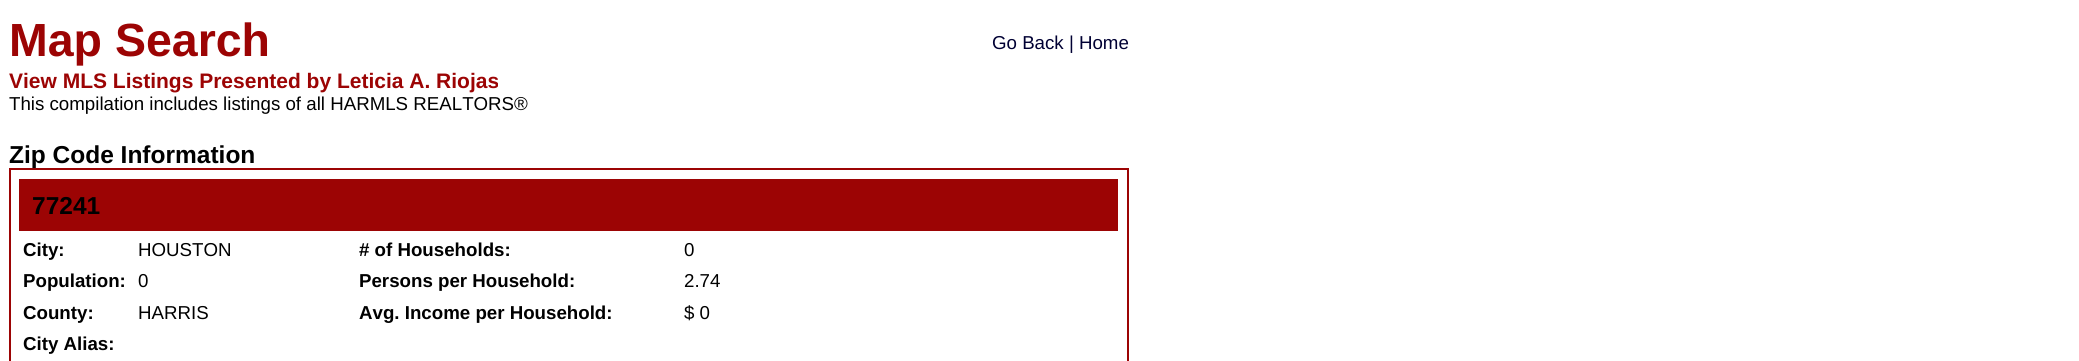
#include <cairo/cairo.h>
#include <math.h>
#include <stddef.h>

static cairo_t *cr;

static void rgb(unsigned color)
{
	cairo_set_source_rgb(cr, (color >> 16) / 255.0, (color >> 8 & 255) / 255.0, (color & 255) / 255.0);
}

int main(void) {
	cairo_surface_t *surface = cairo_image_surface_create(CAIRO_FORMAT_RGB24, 2079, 361);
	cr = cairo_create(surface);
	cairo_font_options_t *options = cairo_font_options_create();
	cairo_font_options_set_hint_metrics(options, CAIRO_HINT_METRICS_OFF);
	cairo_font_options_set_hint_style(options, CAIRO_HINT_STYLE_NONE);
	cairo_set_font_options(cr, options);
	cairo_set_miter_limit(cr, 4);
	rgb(0xffffff);
	cairo_paint(cr);
	cairo_rectangle(cr, 10, 169, 1118, 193);
	rgb(0x9c0404);
	cairo_stroke(cr);
	cairo_rectangle(cr, 19, 179, 1099, 52);
	cairo_fill(cr);
	cairo_select_font_face(cr, "Liberation Sans", CAIRO_FONT_SLANT_NORMAL, CAIRO_FONT_WEIGHT_BOLD);
	cairo_set_font_size(cr, 46.5);
	cairo_move_to(cr, 9, 56);
	cairo_show_text(cr, "Map Search");
	cairo_set_font_size(cr, 21);
	cairo_move_to(cr, 9, 88);
	cairo_show_text(cr, "View MLS Listings Presented by Leticia A. Riojas");
	cairo_select_font_face(cr, "Liberation Sans", CAIRO_FONT_SLANT_NORMAL, CAIRO_FONT_WEIGHT_NORMAL);
	cairo_set_font_size(cr, 18.7);
	rgb(0x000000);
	cairo_move_to(cr, 9, 110);
	cairo_show_text(cr, "This compilation includes listings of all HARMLS REALTORS®");
	rgb(0x000033);
	cairo_move_to(cr, 992, 49);
	cairo_show_text(cr, "Go Back | Home");
	cairo_select_font_face(cr, "Liberation Sans", CAIRO_FONT_SLANT_NORMAL, CAIRO_FONT_WEIGHT_BOLD);
	cairo_set_font_size(cr, 24.5);
	rgb(0x000000);
	cairo_move_to(cr, 9, 163);
	cairo_show_text(cr, "Zip Code Information");
	cairo_move_to(cr, 32, 214);
	cairo_show_text(cr, "77241");
	cairo_set_font_size(cr, 18.7);
	cairo_move_to(cr, 23, 256);
	cairo_show_text(cr, "City:");
	cairo_select_font_face(cr, "Liberation Sans", CAIRO_FONT_SLANT_NORMAL, CAIRO_FONT_WEIGHT_NORMAL);
	cairo_move_to(cr, 138, 256);
	cairo_show_text(cr, "HOUSTON");
	cairo_select_font_face(cr, "Liberation Sans", CAIRO_FONT_SLANT_NORMAL, CAIRO_FONT_WEIGHT_BOLD);
	cairo_move_to(cr, 359, 256);
	cairo_show_text(cr, "# of Households:");
	cairo_select_font_face(cr, "Liberation Sans", CAIRO_FONT_SLANT_NORMAL, CAIRO_FONT_WEIGHT_NORMAL);
	cairo_move_to(cr, 684, 256);
	cairo_show_text(cr, "0");
	cairo_select_font_face(cr, "Liberation Sans", CAIRO_FONT_SLANT_NORMAL, CAIRO_FONT_WEIGHT_BOLD);
	cairo_move_to(cr, 23, 287);
	cairo_show_text(cr, "Population:");
	cairo_select_font_face(cr, "Liberation Sans", CAIRO_FONT_SLANT_NORMAL, CAIRO_FONT_WEIGHT_NORMAL);
	cairo_move_to(cr, 138, 287);
	cairo_show_text(cr, "0");
	cairo_select_font_face(cr, "Liberation Sans", CAIRO_FONT_SLANT_NORMAL, CAIRO_FONT_WEIGHT_BOLD);
	cairo_move_to(cr, 359, 287);
	cairo_show_text(cr, "Persons per Household:");
	cairo_select_font_face(cr, "Liberation Sans", CAIRO_FONT_SLANT_NORMAL, CAIRO_FONT_WEIGHT_NORMAL);
	cairo_move_to(cr, 684, 287);
	cairo_show_text(cr, "2.74");
	cairo_select_font_face(cr, "Liberation Sans", CAIRO_FONT_SLANT_NORMAL, CAIRO_FONT_WEIGHT_BOLD);
	cairo_move_to(cr, 23, 319);
	cairo_show_text(cr, "County:");
	cairo_select_font_face(cr, "Liberation Sans", CAIRO_FONT_SLANT_NORMAL, CAIRO_FONT_WEIGHT_NORMAL);
	cairo_move_to(cr, 138, 319);
	cairo_show_text(cr, "HARRIS");
	cairo_select_font_face(cr, "Liberation Sans", CAIRO_FONT_SLANT_NORMAL, CAIRO_FONT_WEIGHT_BOLD);
	cairo_move_to(cr, 359, 319);
	cairo_show_text(cr, "Avg. Income per Household:");
	cairo_select_font_face(cr, "Liberation Sans", CAIRO_FONT_SLANT_NORMAL, CAIRO_FONT_WEIGHT_NORMAL);
	cairo_move_to(cr, 684, 319);
	cairo_show_text(cr, "$ 0");
	cairo_select_font_face(cr, "Liberation Sans", CAIRO_FONT_SLANT_NORMAL, CAIRO_FONT_WEIGHT_BOLD);
	cairo_move_to(cr, 23, 350);
	cairo_show_text(cr, "City Alias:");
	cairo_surface_write_to_png(surface, "page.png");
	cairo_font_options_destroy(options);
	cairo_destroy(cr);
	cairo_surface_destroy(surface);
	return 0;
}
